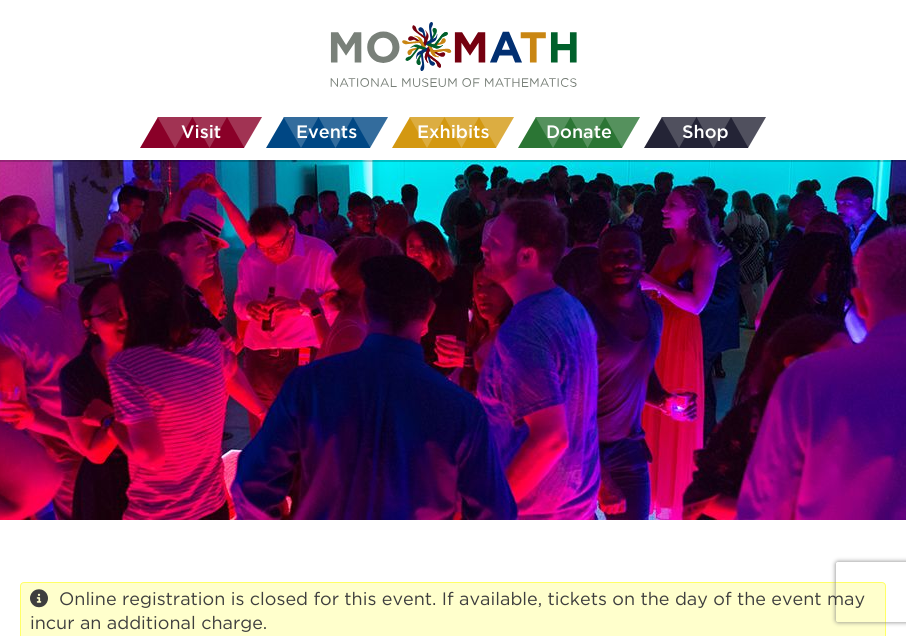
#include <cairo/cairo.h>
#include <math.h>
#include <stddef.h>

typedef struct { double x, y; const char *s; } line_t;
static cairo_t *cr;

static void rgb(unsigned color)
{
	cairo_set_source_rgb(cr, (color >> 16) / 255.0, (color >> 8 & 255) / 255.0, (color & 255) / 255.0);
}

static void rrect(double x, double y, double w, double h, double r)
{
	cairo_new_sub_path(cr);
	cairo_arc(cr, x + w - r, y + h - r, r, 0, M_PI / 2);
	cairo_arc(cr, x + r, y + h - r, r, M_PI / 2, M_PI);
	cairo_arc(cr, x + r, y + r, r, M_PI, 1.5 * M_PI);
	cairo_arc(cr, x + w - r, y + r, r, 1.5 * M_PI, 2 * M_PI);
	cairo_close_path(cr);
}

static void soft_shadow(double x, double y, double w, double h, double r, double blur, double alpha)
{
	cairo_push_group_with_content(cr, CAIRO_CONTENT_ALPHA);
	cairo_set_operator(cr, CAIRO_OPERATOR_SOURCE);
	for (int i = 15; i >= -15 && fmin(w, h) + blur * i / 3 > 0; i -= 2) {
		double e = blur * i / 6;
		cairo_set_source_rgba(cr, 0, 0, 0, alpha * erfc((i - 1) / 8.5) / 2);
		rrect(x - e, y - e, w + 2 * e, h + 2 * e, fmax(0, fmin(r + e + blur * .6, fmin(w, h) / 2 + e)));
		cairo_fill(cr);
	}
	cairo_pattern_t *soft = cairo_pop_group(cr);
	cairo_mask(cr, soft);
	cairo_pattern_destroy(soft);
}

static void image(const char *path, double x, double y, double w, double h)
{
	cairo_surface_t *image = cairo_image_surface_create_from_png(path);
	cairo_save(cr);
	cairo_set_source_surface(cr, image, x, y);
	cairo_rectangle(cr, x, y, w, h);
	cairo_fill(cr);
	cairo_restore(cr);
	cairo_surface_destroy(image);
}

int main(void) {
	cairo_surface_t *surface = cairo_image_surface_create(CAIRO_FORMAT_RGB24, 906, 636);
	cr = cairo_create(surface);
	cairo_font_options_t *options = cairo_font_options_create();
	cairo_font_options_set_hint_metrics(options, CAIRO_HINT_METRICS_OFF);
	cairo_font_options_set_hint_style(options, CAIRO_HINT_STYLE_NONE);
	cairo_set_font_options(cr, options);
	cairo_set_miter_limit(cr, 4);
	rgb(0xffffff);
	cairo_paint(cr);
	image("img/1.png", 330, 22, 247, 65);
	image("img/2.png", 0, 160, 906, 360);
	cairo_set_source_rgba(cr, 0, 0, 0, 0.2);
	cairo_rectangle(cr, 0, 160, 906, 2);
	cairo_fill(cr);
	rgb(0x8a0028);
	cairo_new_path(cr);
	cairo_move_to(cr, 244, 148);
	cairo_line_to(cr, 140, 148);
	cairo_line_to(cr, 158, 117);
	cairo_line_to(cr, 262, 117);
	cairo_close_path(cr);
	cairo_fill(cr);
	rgb(0xa13353);
	cairo_new_path(cr);
	cairo_move_to(cr, 175, 148);
	cairo_line_to(cr, 192.5, 117);
	cairo_line_to(cr, 157.5, 117);
	cairo_close_path(cr);
	cairo_fill(cr);
	cairo_new_path(cr);
	cairo_move_to(cr, 209.5, 148);
	cairo_line_to(cr, 227, 117);
	cairo_line_to(cr, 192.5, 117);
	cairo_close_path(cr);
	cairo_fill(cr);
	cairo_set_source_rgba(cr, 1, 1, 1, 0.2);
	cairo_new_path(cr);
	cairo_move_to(cr, 244.5, 148);
	cairo_line_to(cr, 262, 117);
	cairo_line_to(cr, 227, 117);
	cairo_close_path(cr);
	cairo_fill(cr);
	rgb(0x004784);
	cairo_new_path(cr);
	cairo_move_to(cr, 370, 148);
	cairo_line_to(cr, 266, 148);
	cairo_line_to(cr, 284, 117);
	cairo_line_to(cr, 388, 117);
	cairo_close_path(cr);
	cairo_fill(cr);
	rgb(0x336c9d);
	cairo_new_path(cr);
	cairo_move_to(cr, 301, 148);
	cairo_line_to(cr, 318.5, 117);
	cairo_line_to(cr, 283.5, 117);
	cairo_close_path(cr);
	cairo_fill(cr);
	cairo_new_path(cr);
	cairo_move_to(cr, 335.5, 148);
	cairo_line_to(cr, 353, 117);
	cairo_line_to(cr, 318.5, 117);
	cairo_close_path(cr);
	cairo_fill(cr);
	cairo_set_source_rgba(cr, 1, 1, 1, 0.2);
	cairo_new_path(cr);
	cairo_move_to(cr, 370.5, 148);
	cairo_line_to(cr, 388, 117);
	cairo_line_to(cr, 353, 117);
	cairo_close_path(cr);
	cairo_fill(cr);
	rgb(0xd39811);
	cairo_new_path(cr);
	cairo_move_to(cr, 496, 148);
	cairo_line_to(cr, 392, 148);
	cairo_line_to(cr, 410, 117);
	cairo_line_to(cr, 514, 117);
	cairo_close_path(cr);
	cairo_fill(cr);
	rgb(0xdcad41);
	cairo_new_path(cr);
	cairo_move_to(cr, 427, 148);
	cairo_line_to(cr, 444.5, 117);
	cairo_line_to(cr, 409.5, 117);
	cairo_close_path(cr);
	cairo_fill(cr);
	cairo_new_path(cr);
	cairo_move_to(cr, 461.5, 148);
	cairo_line_to(cr, 479, 117);
	cairo_line_to(cr, 444.5, 117);
	cairo_close_path(cr);
	cairo_fill(cr);
	cairo_set_source_rgba(cr, 1, 1, 1, 0.2);
	cairo_new_path(cr);
	cairo_move_to(cr, 496.5, 148);
	cairo_line_to(cr, 514, 117);
	cairo_line_to(cr, 479, 117);
	cairo_close_path(cr);
	cairo_fill(cr);
	rgb(0x2b7534);
	cairo_new_path(cr);
	cairo_move_to(cr, 622, 148);
	cairo_line_to(cr, 518, 148);
	cairo_line_to(cr, 536, 117);
	cairo_line_to(cr, 640, 117);
	cairo_close_path(cr);
	cairo_fill(cr);
	rgb(0x55915d);
	cairo_new_path(cr);
	cairo_move_to(cr, 553, 148);
	cairo_line_to(cr, 570.5, 117);
	cairo_line_to(cr, 535.5, 117);
	cairo_close_path(cr);
	cairo_fill(cr);
	cairo_new_path(cr);
	cairo_move_to(cr, 587.5, 148);
	cairo_line_to(cr, 605, 117);
	cairo_line_to(cr, 570.5, 117);
	cairo_close_path(cr);
	cairo_fill(cr);
	cairo_set_source_rgba(cr, 1, 1, 1, 0.2);
	cairo_new_path(cr);
	cairo_move_to(cr, 622.5, 148);
	cairo_line_to(cr, 640, 117);
	cairo_line_to(cr, 605, 117);
	cairo_close_path(cr);
	cairo_fill(cr);
	rgb(0x242436);
	cairo_new_path(cr);
	cairo_move_to(cr, 748, 148);
	cairo_line_to(cr, 644, 148);
	cairo_line_to(cr, 662, 117);
	cairo_line_to(cr, 766, 117);
	cairo_close_path(cr);
	cairo_fill(cr);
	rgb(0x50505e);
	cairo_new_path(cr);
	cairo_move_to(cr, 679, 148);
	cairo_line_to(cr, 696.5, 117);
	cairo_line_to(cr, 661.5, 117);
	cairo_close_path(cr);
	cairo_fill(cr);
	cairo_new_path(cr);
	cairo_move_to(cr, 713.5, 148);
	cairo_line_to(cr, 731, 117);
	cairo_line_to(cr, 696.5, 117);
	cairo_close_path(cr);
	cairo_fill(cr);
	cairo_set_source_rgba(cr, 1, 1, 1, 0.2);
	cairo_new_path(cr);
	cairo_move_to(cr, 748.5, 148);
	cairo_line_to(cr, 766, 117);
	cairo_line_to(cr, 731, 117);
	cairo_close_path(cr);
	cairo_fill(cr);
	rgb(0xffffcc);
	rrect(20.5, 582.5, 865, 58, 3.5);
	cairo_fill_preserve(cr);
	rgb(0xffff66);
	cairo_set_line_width(cr, 1);
	cairo_stroke(cr);
	image("img/3.png", 30, 589, 18, 19);
	cairo_save(cr);
	cairo_set_fill_rule(cr, CAIRO_FILL_RULE_EVEN_ODD);
	cairo_new_path(cr);
	cairo_move_to(cr, 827, 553);
	cairo_line_to(cr, 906, 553);
	cairo_line_to(cr, 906, 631);
	cairo_line_to(cr, 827, 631);
	cairo_close_path(cr);
	cairo_move_to(cr, 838, 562);
	cairo_line_to(cr, 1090, 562);
	cairo_curve_to(cr, 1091, 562, 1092, 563, 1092, 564);
	cairo_line_to(cr, 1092, 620);
	cairo_curve_to(cr, 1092, 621, 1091, 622, 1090, 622);
	cairo_line_to(cr, 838, 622);
	cairo_curve_to(cr, 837, 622, 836, 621, 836, 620);
	cairo_line_to(cr, 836, 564);
	cairo_curve_to(cr, 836, 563, 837, 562, 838, 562);
	cairo_close_path(cr);
	cairo_clip(cr);
	rgb(0x808080);
	soft_shadow(836, 562, 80, 60, 2, 2.5, 1);
	cairo_restore(cr);
	cairo_select_font_face(cr, "Gotham Medium", CAIRO_FONT_SLANT_NORMAL, CAIRO_FONT_WEIGHT_NORMAL);
	cairo_set_font_size(cr, 18);
	rgb(0xffffff);
	{
		static const line_t items[] = {
			{181, 138, "Visit"},
			{296, 138, "Events"},
			{417, 138, "Exhibits"},
			{546, 138, "Donate"},
			{682, 138, "Shop"},
		};
		for (size_t i = 0; i < sizeof items / sizeof *items; i++) {
			cairo_move_to(cr, items[i].x, items[i].y);
			cairo_show_text(cr, items[i].s);
		}
	}
	cairo_select_font_face(cr, "Gotham", CAIRO_FONT_SLANT_NORMAL, CAIRO_FONT_WEIGHT_NORMAL);
	rgb(0x3e3e3e);
	cairo_move_to(cr, 59, 605);
	cairo_show_text(cr, "Online registration is closed for this event. If available, tickets on the day of the event may");
	cairo_move_to(cr, 30, 629);
	cairo_show_text(cr, "incur an additional charge.");
	cairo_surface_write_to_png(surface, "page.png");
	cairo_font_options_destroy(options);
	cairo_destroy(cr);
	cairo_surface_destroy(surface);
	return 0;
}
